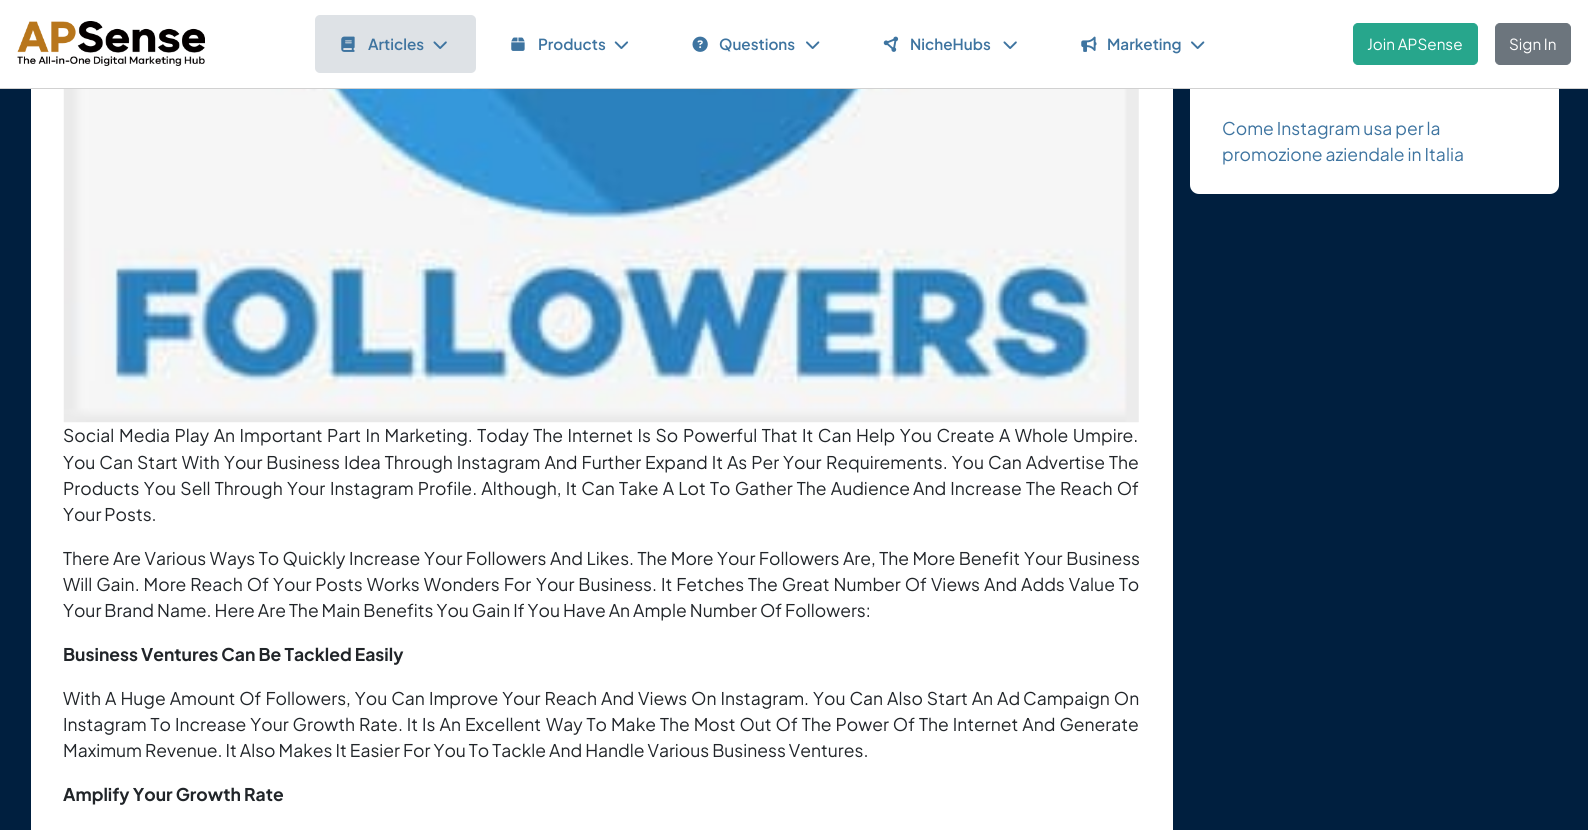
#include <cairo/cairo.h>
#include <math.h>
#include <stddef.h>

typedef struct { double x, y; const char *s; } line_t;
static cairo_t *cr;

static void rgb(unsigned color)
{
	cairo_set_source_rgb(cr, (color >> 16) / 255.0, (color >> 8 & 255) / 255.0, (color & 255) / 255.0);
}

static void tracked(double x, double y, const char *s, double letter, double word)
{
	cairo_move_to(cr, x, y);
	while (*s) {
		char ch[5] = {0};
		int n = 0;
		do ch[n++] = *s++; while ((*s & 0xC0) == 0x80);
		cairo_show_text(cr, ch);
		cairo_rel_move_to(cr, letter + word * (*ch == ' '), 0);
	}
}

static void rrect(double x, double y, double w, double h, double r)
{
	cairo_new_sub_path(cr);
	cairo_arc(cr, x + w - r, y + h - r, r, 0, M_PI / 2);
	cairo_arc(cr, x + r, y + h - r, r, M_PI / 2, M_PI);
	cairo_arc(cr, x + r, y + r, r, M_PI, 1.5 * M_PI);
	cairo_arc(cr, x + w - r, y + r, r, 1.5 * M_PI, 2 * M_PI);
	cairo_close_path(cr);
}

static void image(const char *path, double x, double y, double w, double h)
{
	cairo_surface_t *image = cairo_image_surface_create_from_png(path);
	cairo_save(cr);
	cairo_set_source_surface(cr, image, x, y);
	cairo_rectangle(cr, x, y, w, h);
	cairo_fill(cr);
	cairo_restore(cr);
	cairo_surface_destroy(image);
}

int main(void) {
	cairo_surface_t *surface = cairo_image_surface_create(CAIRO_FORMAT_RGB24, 1588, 830);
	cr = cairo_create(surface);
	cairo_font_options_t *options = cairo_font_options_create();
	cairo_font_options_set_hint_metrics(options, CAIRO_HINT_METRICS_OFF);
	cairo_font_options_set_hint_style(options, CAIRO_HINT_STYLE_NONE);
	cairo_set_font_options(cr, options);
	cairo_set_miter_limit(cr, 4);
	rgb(0x001f3f);
	cairo_paint(cr);
	rgb(0xffffff);
	rrect(1190, -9, 369, 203, 9);
	cairo_fill(cr);
	cairo_rectangle(cr, 0, 0, 1588, 88);
	cairo_fill(cr);
	rgb(0xd1d1d1);
	cairo_rectangle(cr, 0, 88, 1588, 1);
	cairo_fill(cr);
	image("img/1.png", 17, 21, 188, 45);
	rgb(0xdee2e6);
	rrect(315, 15, 161, 58, 5);
	cairo_fill(cr);
	image("img/2.png", 341, 36, 14, 16);
	image("img/3.png", 433, 41, 14, 8);
	image("img/4.png", 511, 37, 14, 14);
	image("img/5.png", 614, 41, 15, 8);
	image("img/6.png", 692, 36, 16, 16);
	image("img/7.png", 806, 41, 14, 8);
	image("img/8.png", 883, 36, 16, 16);
	image("img/9.png", 1003, 41, 14, 8);
	image("img/10.png", 1081, 36, 16, 16);
	image("img/7.png", 1191, 41, 14, 8);
	rgb(0x27a68c);
	rrect(1353.5, 23.5, 124, 41, 4.5);
	cairo_fill_preserve(cr);
	cairo_set_line_width(cr, 1);
	cairo_stroke(cr);
	rgb(0x6c757d);
	rrect(1495.5, 23.5, 75, 41, 4.5);
	cairo_fill_preserve(cr);
	cairo_stroke(cr);
	rgb(0xffffff);
	cairo_rectangle(cr, 31, 89, 1142, 741);
	cairo_fill(cr);
	image("img/11.png", 63, 89, 1076, 334);
	cairo_select_font_face(cr, "Plus Jakarta Sans SemiBold", CAIRO_FONT_SLANT_NORMAL, CAIRO_FONT_WEIGHT_NORMAL);
	cairo_set_font_size(cr, 15.25);
	rgb(0x3e74a0);
	{
		static const line_t items[] = {
			{368, 50, "Articles"},
			{538, 50, "Products"},
			{719, 50, "Questions"},
			{910, 50, "NicheHubs"},
			{1107, 50, "Marketing"},
		};
		for (size_t i = 0; i < sizeof items / sizeof *items; i++) {
			cairo_move_to(cr, items[i].x, items[i].y);
			cairo_show_text(cr, items[i].s);
		}
	}
	cairo_select_font_face(cr, "Plus Jakarta Sans", CAIRO_FONT_SLANT_NORMAL, CAIRO_FONT_WEIGHT_NORMAL);
	rgb(0xffffff);
	cairo_move_to(cr, 1367, 50);
	cairo_show_text(cr, "Join APSense");
	cairo_move_to(cr, 1509, 50);
	cairo_show_text(cr, "Sign In");
	cairo_set_font_size(cr, 17.5);
	rgb(0x3e74a0);
	cairo_move_to(cr, 1222, 135);
	cairo_show_text(cr, "Come Instagram usa per la");
	cairo_move_to(cr, 1222, 161);
	cairo_show_text(cr, "promozione aziendale in Italia");
	rgb(0x212529);
	cairo_move_to(cr, 63, 442);
	cairo_show_text(cr, "Social");
	tracked(119, 442, "Media Play An Important Part In Marketing. Today The Internet Is So", 0, 1.5);
	tracked(683, 442, "Powerful That It Can Help You Create A Whole Umpire.", 0, 1.5);
	{
		static const line_t items[] = {
			{63, 469, "You Can Start With"},
			{224, 469, "Your Business Idea Through Instagram And Further Expand It As Per Your"},
			{826, 469, "Requirements. You Can Advertise The"},
		};
		for (size_t i = 0; i < sizeof items / sizeof *items; i++) {
			tracked(items[i].x, items[i].y, items[i].s, 0, 1);
		}
	}
	{
		static const line_t items[] = {
			{63, 495, "Products You Sell Through Your"},
			{330, 495, "Instagram Profile. Although, It Can Take A Lot To Gather The Audience"},
			{913, 495, "And Increase The Reach Of"},
		};
		for (size_t i = 0; i < sizeof items / sizeof *items; i++) {
			tracked(items[i].x, items[i].y, items[i].s, 0, 1.25);
		}
	}
	cairo_move_to(cr, 63, 521);
	cairo_show_text(cr, "Your Posts.");
	tracked(63, 565, "There Are Various Ways To Quickly Increase", 0, 0.5);
	tracked(424, 565, "Your Followers And Likes. The More Your Followers Are, The More Benefit", 0, 0.5);
	{
		static const line_t items[] = {
			{1024, 565, "Your Business"},
			{63, 591, "Will Gain. More Reach Of Your Posts Works Wonders For"},
			{536, 591, "Your Business. It Fetches The Great Number Of Views And Adds Value To"},
		};
		for (size_t i = 0; i < sizeof items / sizeof *items; i++) {
			tracked(items[i].x, items[i].y, items[i].s, 0, 1);
		}
	}
	cairo_move_to(cr, 63, 617);
	cairo_show_text(cr, "Your Brand Name. Here Are The Main Benefits You Gain If You Have An Ample Number Of Followers:");
	cairo_select_font_face(cr, "Plus Jakarta Sans", CAIRO_FONT_SLANT_NORMAL, CAIRO_FONT_WEIGHT_BOLD);
	cairo_move_to(cr, 63, 661);
	cairo_show_text(cr, "Business Ventures Can Be Tackled Easily");
	cairo_select_font_face(cr, "Plus Jakarta Sans", CAIRO_FONT_SLANT_NORMAL, CAIRO_FONT_WEIGHT_NORMAL);
	{
		static const line_t items[] = {
			{63, 705, "With A Huge Amount Of Followers, You Can"},
			{429, 705, "Improve Your Reach And Views On Instagram. You Can Also Start An Ad"},
			{1023, 705, "Campaign On"},
			{63, 731, "Instagram To Increase Your Growth Rate. It Is An Excellent"},
			{546, 731, "Way To Make The Most Out Of The Power Of The Internet And Generate"},
		};
		for (size_t i = 0; i < sizeof items / sizeof *items; i++) {
			tracked(items[i].x, items[i].y, items[i].s, 0, 1);
		}
	}
	cairo_move_to(cr, 63, 757);
	cairo_show_text(cr, "Maximum Revenue. It Also Makes It Easier For You To Tackle And Handle Various Business Ventures.");
	cairo_select_font_face(cr, "Plus Jakarta Sans", CAIRO_FONT_SLANT_NORMAL, CAIRO_FONT_WEIGHT_BOLD);
	cairo_move_to(cr, 63, 801);
	cairo_show_text(cr, "Amplify Your Growth Rate");
	cairo_surface_write_to_png(surface, "page.png");
	cairo_font_options_destroy(options);
	cairo_destroy(cr);
	cairo_surface_destroy(surface);
	return 0;
}
